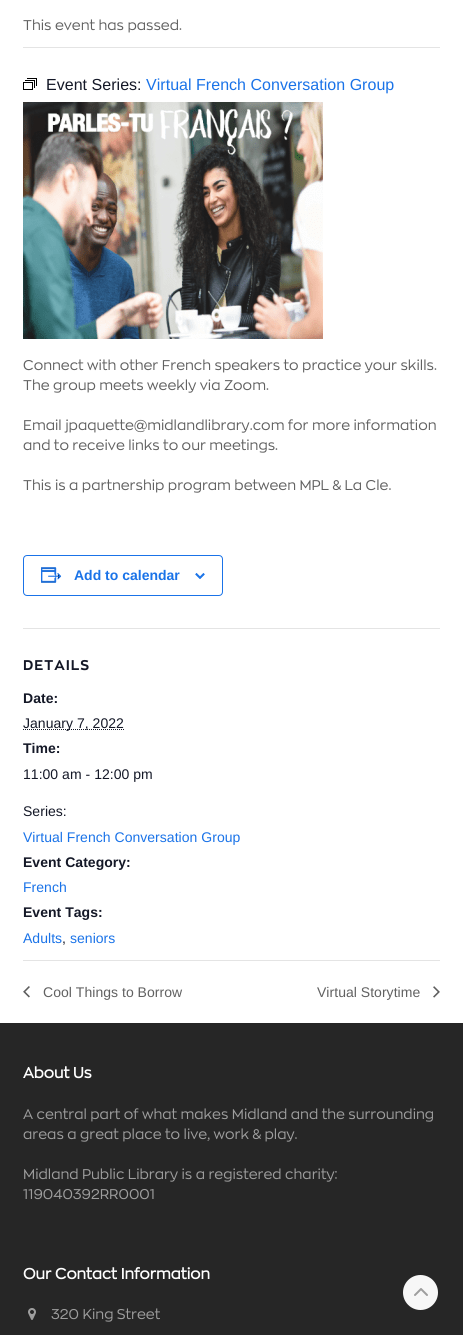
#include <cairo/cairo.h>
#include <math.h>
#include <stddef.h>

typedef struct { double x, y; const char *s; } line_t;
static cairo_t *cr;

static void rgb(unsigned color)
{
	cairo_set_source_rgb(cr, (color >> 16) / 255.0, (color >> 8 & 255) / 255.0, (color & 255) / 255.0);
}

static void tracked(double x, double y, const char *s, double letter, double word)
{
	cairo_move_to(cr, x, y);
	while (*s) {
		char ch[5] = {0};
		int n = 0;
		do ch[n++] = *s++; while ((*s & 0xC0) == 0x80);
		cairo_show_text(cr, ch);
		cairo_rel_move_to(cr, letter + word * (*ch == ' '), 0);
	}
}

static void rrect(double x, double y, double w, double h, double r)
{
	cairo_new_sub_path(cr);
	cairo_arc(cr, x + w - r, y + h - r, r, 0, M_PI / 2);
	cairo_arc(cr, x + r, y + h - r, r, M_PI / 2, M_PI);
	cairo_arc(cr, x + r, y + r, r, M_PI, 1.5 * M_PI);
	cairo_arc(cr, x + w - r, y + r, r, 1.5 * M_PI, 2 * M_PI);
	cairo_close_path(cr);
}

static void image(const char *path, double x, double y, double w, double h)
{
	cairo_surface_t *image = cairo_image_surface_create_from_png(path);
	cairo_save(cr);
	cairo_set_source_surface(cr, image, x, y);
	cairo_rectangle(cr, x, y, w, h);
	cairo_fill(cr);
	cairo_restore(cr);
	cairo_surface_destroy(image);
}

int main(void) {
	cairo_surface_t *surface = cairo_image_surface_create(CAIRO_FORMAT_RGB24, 463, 1335);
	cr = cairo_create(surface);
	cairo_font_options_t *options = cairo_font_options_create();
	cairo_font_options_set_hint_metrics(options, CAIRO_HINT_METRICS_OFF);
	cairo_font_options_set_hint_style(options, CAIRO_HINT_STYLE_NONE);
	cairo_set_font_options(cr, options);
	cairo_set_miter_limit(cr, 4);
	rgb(0xffffff);
	cairo_paint(cr);
	rgb(0xe4e4e4);
	cairo_rectangle(cr, 23, 47, 417, 1);
	cairo_fill(cr);
	image("img/1.png", 23, 78, 14, 12);
	image("img/2.png", 23, 102, 300, 237);
	rrect(23.5, 555.5, 199, 40, 3.5);
	rgb(0x1a73e8);
	cairo_set_line_width(cr, 1);
	cairo_stroke(cr);
	image("img/3.png", 41, 567, 21, 16);
	image("img/4.png", 195, 573, 10, 6);
	rgb(0xe4e4e4);
	cairo_rectangle(cr, 23, 628, 417, 1);
	cairo_fill(cr);
	cairo_new_path(cr);
	cairo_move_to(cr, 23, 729.5);
	cairo_line_to(cr, 124, 729.5);
	rgb(0x141827);
	cairo_set_dash(cr, (double[]){1, 1}, 2, 0);
	cairo_stroke(cr);
	rgb(0xe4e4e4);
	cairo_rectangle(cr, 23, 960, 417, 1);
	cairo_fill(cr);
	image("img/5.png", 23, 986, 7, 12);
	image("img/6.png", 433, 986, 7, 12);
	rgb(0x262626);
	cairo_rectangle(cr, 0, 1023, 463, 312);
	cairo_fill(cr);
	image("img/7.png", 28, 1308, 8, 12);
	rgb(0xf7f7f7);
	cairo_arc(cr, 420.5, 1292.5, 17.5, 0, 2 * M_PI);
	cairo_fill(cr);
	image("img/8.png", 414, 1288, 14, 8);
	cairo_select_font_face(cr, "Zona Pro", CAIRO_FONT_SLANT_NORMAL, CAIRO_FONT_WEIGHT_NORMAL);
	cairo_set_font_size(cr, 14);
	rgb(0x616161);
	tracked(23, 30, "This event has passed.", 0.03, 0);
	cairo_select_font_face(cr, "Liberation Sans", CAIRO_FONT_SLANT_NORMAL, CAIRO_FONT_WEIGHT_NORMAL);
	cairo_set_font_size(cr, 16);
	rgb(0x141827);
	tracked(46, 90, "Event Series:", 0.03, 0);
	rgb(0x1a73e8);
	tracked(146, 90, "Virtual French Conversation Group", 0.03, 0);
	cairo_select_font_face(cr, "Zona Pro", CAIRO_FONT_SLANT_NORMAL, CAIRO_FONT_WEIGHT_NORMAL);
	cairo_set_font_size(cr, 14);
	rgb(0x616161);
	{
		static const line_t items[] = {
			{23, 370, "Connect with other French speakers to practice your skills."},
			{23, 390, "The group meets weekly via Zoom."},
			{23, 430, "Email jpaquette@midlandlibrary.com for more information"},
			{23, 450, "and to receive links to our meetings."},
			{23, 490, "This is a partnership program between MPL & La Cle."},
		};
		for (size_t i = 0; i < sizeof items / sizeof *items; i++) {
			tracked(items[i].x, items[i].y, items[i].s, 0.03, 0);
		}
	}
	cairo_select_font_face(cr, "Liberation Sans", CAIRO_FONT_SLANT_NORMAL, CAIRO_FONT_WEIGHT_BOLD);
	rgb(0x1a73e8);
	cairo_move_to(cr, 74, 580);
	cairo_show_text(cr, "Add to calendar");
	cairo_select_font_face(cr, "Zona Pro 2", CAIRO_FONT_SLANT_NORMAL, CAIRO_FONT_WEIGHT_BOLD);
	rgb(0x141827);
	tracked(23, 670, "DETAILS", 1, 0);
	cairo_select_font_face(cr, "Liberation Sans", CAIRO_FONT_SLANT_NORMAL, CAIRO_FONT_WEIGHT_BOLD);
	tracked(23, 703, "Date:", 0.03, 0);
	cairo_select_font_face(cr, "Liberation Sans", CAIRO_FONT_SLANT_NORMAL, CAIRO_FONT_WEIGHT_NORMAL);
	tracked(23, 728, "January 7, 2022", 0.03, 0);
	cairo_select_font_face(cr, "Liberation Sans", CAIRO_FONT_SLANT_NORMAL, CAIRO_FONT_WEIGHT_BOLD);
	tracked(23, 753, "Time:", 0.03, 0);
	cairo_select_font_face(cr, "Liberation Sans", CAIRO_FONT_SLANT_NORMAL, CAIRO_FONT_WEIGHT_NORMAL);
	tracked(23, 779, "11:00 am - 12:00 pm", 0.03, 0);
	tracked(23, 816, "Series:", 0.03, 0);
	rgb(0x1a73e8);
	tracked(23, 842, "Virtual French Conversation Group", 0.03, 0);
	cairo_select_font_face(cr, "Liberation Sans", CAIRO_FONT_SLANT_NORMAL, CAIRO_FONT_WEIGHT_BOLD);
	rgb(0x141827);
	tracked(23, 867, "Event Category:", 0.03, 0);
	cairo_select_font_face(cr, "Liberation Sans", CAIRO_FONT_SLANT_NORMAL, CAIRO_FONT_WEIGHT_NORMAL);
	rgb(0x1a73e8);
	tracked(23, 892, "French", 0.03, 0);
	cairo_select_font_face(cr, "Liberation Sans", CAIRO_FONT_SLANT_NORMAL, CAIRO_FONT_WEIGHT_BOLD);
	rgb(0x141827);
	tracked(23, 917, "Event Tags:", 0.03, 0);
	cairo_select_font_face(cr, "Liberation Sans", CAIRO_FONT_SLANT_NORMAL, CAIRO_FONT_WEIGHT_NORMAL);
	rgb(0x1a73e8);
	tracked(23, 943, "Adults", 0.03, 0);
	rgb(0x141827);
	tracked(62, 943, ",", 0.03, 0);
	rgb(0x1a73e8);
	tracked(70, 943, "seniors", 0.03, 0);
	rgb(0x616161);
	tracked(43, 997, "Cool Things to Borrow", 0.03, 0);
	tracked(317, 997, "Virtual Storytime", 0.03, 0);
	cairo_select_font_face(cr, "Zona Pro", CAIRO_FONT_SLANT_NORMAL, CAIRO_FONT_WEIGHT_BOLD);
	cairo_set_font_size(cr, 15);
	rgb(0xffffff);
	tracked(23, 1078, "About Us", 0.03, 0);
	cairo_select_font_face(cr, "Zona Pro", CAIRO_FONT_SLANT_NORMAL, CAIRO_FONT_WEIGHT_NORMAL);
	cairo_set_font_size(cr, 14);
	rgb(0x9e9e9e);
	{
		static const line_t items[] = {
			{23, 1119, "A central part of what makes Midland and the surrounding"},
			{23, 1139, "areas a great place to live, work & play."},
			{23, 1179, "Midland Public Library is a registered charity:"},
			{23, 1199, "119040392RR0001"},
		};
		for (size_t i = 0; i < sizeof items / sizeof *items; i++) {
			tracked(items[i].x, items[i].y, items[i].s, 0.03, 0);
		}
	}
	cairo_select_font_face(cr, "Zona Pro", CAIRO_FONT_SLANT_NORMAL, CAIRO_FONT_WEIGHT_BOLD);
	cairo_set_font_size(cr, 15);
	rgb(0xffffff);
	tracked(23, 1279, "Our Contact Information", 0.03, 0);
	cairo_select_font_face(cr, "Zona Pro", CAIRO_FONT_SLANT_NORMAL, CAIRO_FONT_WEIGHT_NORMAL);
	cairo_set_font_size(cr, 14);
	rgb(0x9e9e9e);
	tracked(51, 1319, "320 King Street", 0.03, 0);
	cairo_surface_write_to_png(surface, "page.png");
	cairo_font_options_destroy(options);
	cairo_destroy(cr);
	cairo_surface_destroy(surface);
	return 0;
}
